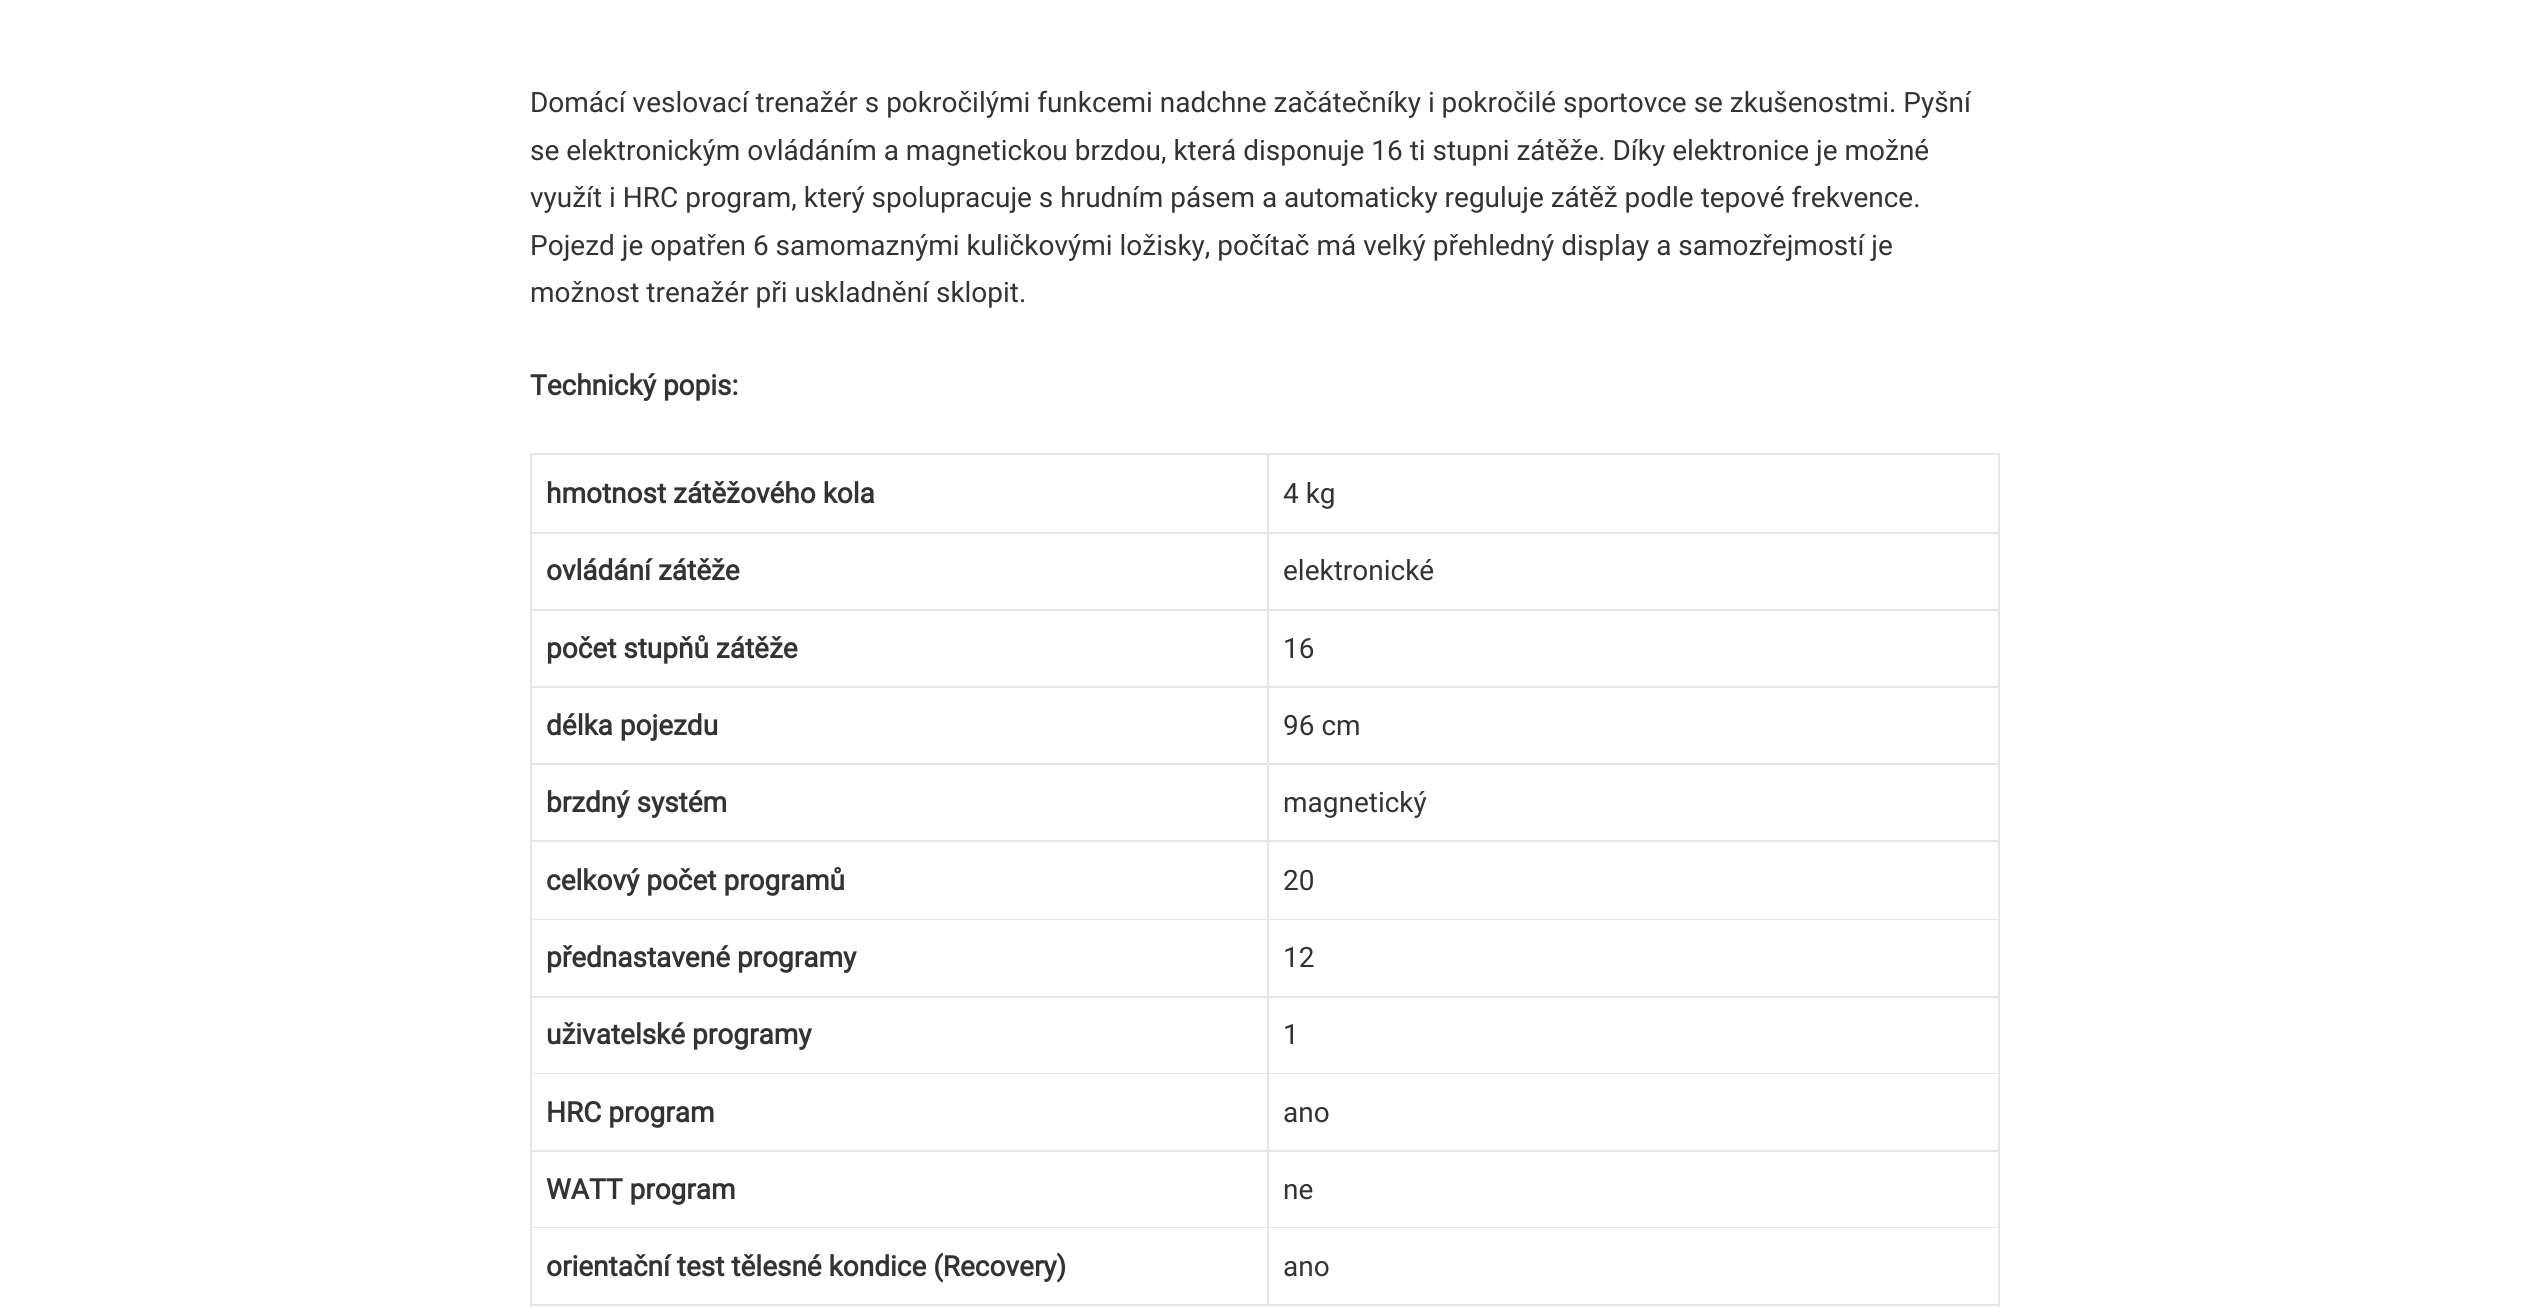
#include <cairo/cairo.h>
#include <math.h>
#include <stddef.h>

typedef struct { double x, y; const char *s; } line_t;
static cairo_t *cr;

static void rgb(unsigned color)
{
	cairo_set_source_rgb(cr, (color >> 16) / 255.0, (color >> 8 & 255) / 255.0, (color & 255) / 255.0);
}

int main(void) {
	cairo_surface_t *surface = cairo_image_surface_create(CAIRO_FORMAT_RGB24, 2529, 1307);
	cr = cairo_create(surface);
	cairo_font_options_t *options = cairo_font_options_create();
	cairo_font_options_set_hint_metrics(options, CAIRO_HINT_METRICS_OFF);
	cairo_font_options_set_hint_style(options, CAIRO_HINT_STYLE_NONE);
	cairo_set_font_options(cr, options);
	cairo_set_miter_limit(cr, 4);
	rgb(0xffffff);
	cairo_paint(cr);
	rgb(0xe6e6e6);
	cairo_new_path(cr);
	cairo_move_to(cr, 530, 453);
	cairo_line_to(cr, 2000, 453);
	cairo_line_to(cr, 2000, 455);
	cairo_line_to(cr, 532, 455);
	cairo_close_path(cr);
	cairo_fill(cr);
	cairo_set_source_rgba(cr, 0, 0, 0, 0.1);
	cairo_new_path(cr);
	cairo_move_to(cr, 530, 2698);
	cairo_line_to(cr, 530, 453);
	cairo_line_to(cr, 532, 455);
	cairo_line_to(cr, 532, 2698);
	cairo_close_path(cr);
	cairo_fill(cr);
	rgb(0xe6e6e6);
	cairo_new_path(cr);
	cairo_move_to(cr, 1269, 455);
	cairo_line_to(cr, 1269, 534);
	cairo_line_to(cr, 1267, 532);
	cairo_line_to(cr, 1267, 455);
	cairo_close_path(cr);
	cairo_fill(cr);
	cairo_set_source_rgba(cr, 0, 0, 0, 0.1);
	cairo_new_path(cr);
	cairo_move_to(cr, 1269, 534);
	cairo_line_to(cr, 532, 534);
	cairo_line_to(cr, 532, 532);
	cairo_line_to(cr, 1267, 532);
	cairo_close_path(cr);
	cairo_fill(cr);
	rgb(0xe6e6e6);
	cairo_new_path(cr);
	cairo_move_to(cr, 2000, 455);
	cairo_line_to(cr, 2000, 534);
	cairo_line_to(cr, 1998, 532);
	cairo_line_to(cr, 1998, 455);
	cairo_close_path(cr);
	cairo_fill(cr);
	cairo_set_source_rgba(cr, 0, 0, 0, 0.1);
	cairo_new_path(cr);
	cairo_move_to(cr, 2000, 534);
	cairo_line_to(cr, 1269, 534);
	cairo_line_to(cr, 1269, 532);
	cairo_line_to(cr, 1998, 532);
	cairo_close_path(cr);
	cairo_fill(cr);
	rgb(0xe6e6e6);
	cairo_new_path(cr);
	cairo_move_to(cr, 1269, 534);
	cairo_line_to(cr, 1269, 611);
	cairo_line_to(cr, 1267, 609);
	cairo_line_to(cr, 1267, 534);
	cairo_close_path(cr);
	cairo_fill(cr);
	cairo_set_source_rgba(cr, 0, 0, 0, 0.1);
	cairo_new_path(cr);
	cairo_move_to(cr, 1269, 611);
	cairo_line_to(cr, 532, 611);
	cairo_line_to(cr, 532, 609);
	cairo_line_to(cr, 1267, 609);
	cairo_close_path(cr);
	cairo_fill(cr);
	rgb(0xe6e6e6);
	cairo_new_path(cr);
	cairo_move_to(cr, 2000, 534);
	cairo_line_to(cr, 2000, 611);
	cairo_line_to(cr, 1998, 609);
	cairo_line_to(cr, 1998, 534);
	cairo_close_path(cr);
	cairo_fill(cr);
	cairo_set_source_rgba(cr, 0, 0, 0, 0.1);
	cairo_new_path(cr);
	cairo_move_to(cr, 2000, 611);
	cairo_line_to(cr, 1269, 611);
	cairo_line_to(cr, 1269, 609);
	cairo_line_to(cr, 1998, 609);
	cairo_close_path(cr);
	cairo_fill(cr);
	rgb(0xe6e6e6);
	cairo_new_path(cr);
	cairo_move_to(cr, 1269, 611);
	cairo_line_to(cr, 1269, 688);
	cairo_line_to(cr, 1267, 686);
	cairo_line_to(cr, 1267, 611);
	cairo_close_path(cr);
	cairo_fill(cr);
	cairo_set_source_rgba(cr, 0, 0, 0, 0.1);
	cairo_new_path(cr);
	cairo_move_to(cr, 1269, 688);
	cairo_line_to(cr, 532, 688);
	cairo_line_to(cr, 532, 686);
	cairo_line_to(cr, 1267, 686);
	cairo_close_path(cr);
	cairo_fill(cr);
	rgb(0xe6e6e6);
	cairo_new_path(cr);
	cairo_move_to(cr, 2000, 611);
	cairo_line_to(cr, 2000, 688);
	cairo_line_to(cr, 1998, 686);
	cairo_line_to(cr, 1998, 611);
	cairo_close_path(cr);
	cairo_fill(cr);
	cairo_set_source_rgba(cr, 0, 0, 0, 0.1);
	cairo_new_path(cr);
	cairo_move_to(cr, 2000, 688);
	cairo_line_to(cr, 1269, 688);
	cairo_line_to(cr, 1269, 686);
	cairo_line_to(cr, 1998, 686);
	cairo_close_path(cr);
	cairo_fill(cr);
	rgb(0xe6e6e6);
	cairo_new_path(cr);
	cairo_move_to(cr, 1269, 688);
	cairo_line_to(cr, 1269, 765);
	cairo_line_to(cr, 1267, 763);
	cairo_line_to(cr, 1267, 688);
	cairo_close_path(cr);
	cairo_fill(cr);
	cairo_set_source_rgba(cr, 0, 0, 0, 0.1);
	cairo_new_path(cr);
	cairo_move_to(cr, 1269, 765);
	cairo_line_to(cr, 532, 765);
	cairo_line_to(cr, 532, 763);
	cairo_line_to(cr, 1267, 763);
	cairo_close_path(cr);
	cairo_fill(cr);
	rgb(0xe6e6e6);
	cairo_new_path(cr);
	cairo_move_to(cr, 2000, 688);
	cairo_line_to(cr, 2000, 765);
	cairo_line_to(cr, 1998, 763);
	cairo_line_to(cr, 1998, 688);
	cairo_close_path(cr);
	cairo_fill(cr);
	cairo_set_source_rgba(cr, 0, 0, 0, 0.1);
	cairo_new_path(cr);
	cairo_move_to(cr, 2000, 765);
	cairo_line_to(cr, 1269, 765);
	cairo_line_to(cr, 1269, 763);
	cairo_line_to(cr, 1998, 763);
	cairo_close_path(cr);
	cairo_fill(cr);
	rgb(0xe6e6e6);
	cairo_new_path(cr);
	cairo_move_to(cr, 1269, 765);
	cairo_line_to(cr, 1269, 842);
	cairo_line_to(cr, 1267, 840);
	cairo_line_to(cr, 1267, 765);
	cairo_close_path(cr);
	cairo_fill(cr);
	cairo_set_source_rgba(cr, 0, 0, 0, 0.1);
	cairo_new_path(cr);
	cairo_move_to(cr, 1269, 842);
	cairo_line_to(cr, 532, 842);
	cairo_line_to(cr, 532, 840);
	cairo_line_to(cr, 1267, 840);
	cairo_close_path(cr);
	cairo_fill(cr);
	rgb(0xe6e6e6);
	cairo_new_path(cr);
	cairo_move_to(cr, 2000, 765);
	cairo_line_to(cr, 2000, 842);
	cairo_line_to(cr, 1998, 840);
	cairo_line_to(cr, 1998, 765);
	cairo_close_path(cr);
	cairo_fill(cr);
	cairo_set_source_rgba(cr, 0, 0, 0, 0.1);
	cairo_new_path(cr);
	cairo_move_to(cr, 2000, 842);
	cairo_line_to(cr, 1269, 842);
	cairo_line_to(cr, 1269, 840);
	cairo_line_to(cr, 1998, 840);
	cairo_close_path(cr);
	cairo_fill(cr);
	rgb(0xe6e6e6);
	cairo_new_path(cr);
	cairo_move_to(cr, 1269, 842);
	cairo_line_to(cr, 1269, 920);
	cairo_line_to(cr, 1267, 919);
	cairo_line_to(cr, 1267, 842);
	cairo_close_path(cr);
	cairo_fill(cr);
	cairo_set_source_rgba(cr, 0, 0, 0, 0.1);
	cairo_new_path(cr);
	cairo_move_to(cr, 1269, 920);
	cairo_line_to(cr, 532, 920);
	cairo_line_to(cr, 532, 919);
	cairo_line_to(cr, 1267, 919);
	cairo_close_path(cr);
	cairo_fill(cr);
	rgb(0xe6e6e6);
	cairo_new_path(cr);
	cairo_move_to(cr, 2000, 842);
	cairo_line_to(cr, 2000, 920);
	cairo_line_to(cr, 1998, 919);
	cairo_line_to(cr, 1998, 842);
	cairo_close_path(cr);
	cairo_fill(cr);
	cairo_set_source_rgba(cr, 0, 0, 0, 0.1);
	cairo_new_path(cr);
	cairo_move_to(cr, 2000, 920);
	cairo_line_to(cr, 1269, 920);
	cairo_line_to(cr, 1269, 919);
	cairo_line_to(cr, 1998, 919);
	cairo_close_path(cr);
	cairo_fill(cr);
	rgb(0xe6e6e6);
	cairo_new_path(cr);
	cairo_move_to(cr, 1269, 920);
	cairo_line_to(cr, 1269, 998);
	cairo_line_to(cr, 1267, 996);
	cairo_line_to(cr, 1267, 920);
	cairo_close_path(cr);
	cairo_fill(cr);
	cairo_set_source_rgba(cr, 0, 0, 0, 0.1);
	cairo_new_path(cr);
	cairo_move_to(cr, 1269, 998);
	cairo_line_to(cr, 532, 998);
	cairo_line_to(cr, 532, 996);
	cairo_line_to(cr, 1267, 996);
	cairo_close_path(cr);
	cairo_fill(cr);
	rgb(0xe6e6e6);
	cairo_new_path(cr);
	cairo_move_to(cr, 2000, 920);
	cairo_line_to(cr, 2000, 998);
	cairo_line_to(cr, 1998, 996);
	cairo_line_to(cr, 1998, 920);
	cairo_close_path(cr);
	cairo_fill(cr);
	cairo_set_source_rgba(cr, 0, 0, 0, 0.1);
	cairo_new_path(cr);
	cairo_move_to(cr, 2000, 998);
	cairo_line_to(cr, 1269, 998);
	cairo_line_to(cr, 1269, 996);
	cairo_line_to(cr, 1998, 996);
	cairo_close_path(cr);
	cairo_fill(cr);
	rgb(0xe6e6e6);
	cairo_new_path(cr);
	cairo_move_to(cr, 1269, 998);
	cairo_line_to(cr, 1269, 1074);
	cairo_line_to(cr, 1267, 1073);
	cairo_line_to(cr, 1267, 998);
	cairo_close_path(cr);
	cairo_fill(cr);
	cairo_set_source_rgba(cr, 0, 0, 0, 0.1);
	cairo_new_path(cr);
	cairo_move_to(cr, 1269, 1074);
	cairo_line_to(cr, 532, 1074);
	cairo_line_to(cr, 532, 1073);
	cairo_line_to(cr, 1267, 1073);
	cairo_close_path(cr);
	cairo_fill(cr);
	rgb(0xe6e6e6);
	cairo_new_path(cr);
	cairo_move_to(cr, 2000, 998);
	cairo_line_to(cr, 2000, 1074);
	cairo_line_to(cr, 1998, 1073);
	cairo_line_to(cr, 1998, 998);
	cairo_close_path(cr);
	cairo_fill(cr);
	cairo_set_source_rgba(cr, 0, 0, 0, 0.1);
	cairo_new_path(cr);
	cairo_move_to(cr, 2000, 1074);
	cairo_line_to(cr, 1269, 1074);
	cairo_line_to(cr, 1269, 1073);
	cairo_line_to(cr, 1998, 1073);
	cairo_close_path(cr);
	cairo_fill(cr);
	rgb(0xe6e6e6);
	cairo_new_path(cr);
	cairo_move_to(cr, 1269, 1074);
	cairo_line_to(cr, 1269, 1152);
	cairo_line_to(cr, 1267, 1150);
	cairo_line_to(cr, 1267, 1074);
	cairo_close_path(cr);
	cairo_fill(cr);
	cairo_set_source_rgba(cr, 0, 0, 0, 0.1);
	cairo_new_path(cr);
	cairo_move_to(cr, 1269, 1152);
	cairo_line_to(cr, 532, 1152);
	cairo_line_to(cr, 532, 1150);
	cairo_line_to(cr, 1267, 1150);
	cairo_close_path(cr);
	cairo_fill(cr);
	rgb(0xe6e6e6);
	cairo_new_path(cr);
	cairo_move_to(cr, 2000, 1074);
	cairo_line_to(cr, 2000, 1152);
	cairo_line_to(cr, 1998, 1150);
	cairo_line_to(cr, 1998, 1074);
	cairo_close_path(cr);
	cairo_fill(cr);
	cairo_set_source_rgba(cr, 0, 0, 0, 0.1);
	cairo_new_path(cr);
	cairo_move_to(cr, 2000, 1152);
	cairo_line_to(cr, 1269, 1152);
	cairo_line_to(cr, 1269, 1150);
	cairo_line_to(cr, 1998, 1150);
	cairo_close_path(cr);
	cairo_fill(cr);
	rgb(0xe6e6e6);
	cairo_new_path(cr);
	cairo_move_to(cr, 1269, 1152);
	cairo_line_to(cr, 1269, 1228);
	cairo_line_to(cr, 1267, 1227);
	cairo_line_to(cr, 1267, 1152);
	cairo_close_path(cr);
	cairo_fill(cr);
	cairo_set_source_rgba(cr, 0, 0, 0, 0.1);
	cairo_new_path(cr);
	cairo_move_to(cr, 1269, 1228);
	cairo_line_to(cr, 532, 1228);
	cairo_line_to(cr, 532, 1227);
	cairo_line_to(cr, 1267, 1227);
	cairo_close_path(cr);
	cairo_fill(cr);
	rgb(0xe6e6e6);
	cairo_new_path(cr);
	cairo_move_to(cr, 2000, 1152);
	cairo_line_to(cr, 2000, 1228);
	cairo_line_to(cr, 1998, 1227);
	cairo_line_to(cr, 1998, 1152);
	cairo_close_path(cr);
	cairo_fill(cr);
	cairo_set_source_rgba(cr, 0, 0, 0, 0.1);
	cairo_new_path(cr);
	cairo_move_to(cr, 2000, 1228);
	cairo_line_to(cr, 1269, 1228);
	cairo_line_to(cr, 1269, 1227);
	cairo_line_to(cr, 1998, 1227);
	cairo_close_path(cr);
	cairo_fill(cr);
	rgb(0xe6e6e6);
	cairo_new_path(cr);
	cairo_move_to(cr, 1269, 1228);
	cairo_line_to(cr, 1269, 1306);
	cairo_line_to(cr, 1267, 1304);
	cairo_line_to(cr, 1267, 1228);
	cairo_close_path(cr);
	cairo_fill(cr);
	cairo_set_source_rgba(cr, 0, 0, 0, 0.1);
	cairo_new_path(cr);
	cairo_move_to(cr, 1269, 1306);
	cairo_line_to(cr, 532, 1306);
	cairo_line_to(cr, 532, 1304);
	cairo_line_to(cr, 1267, 1304);
	cairo_close_path(cr);
	cairo_fill(cr);
	rgb(0xe6e6e6);
	cairo_new_path(cr);
	cairo_move_to(cr, 2000, 1228);
	cairo_line_to(cr, 2000, 1306);
	cairo_line_to(cr, 1998, 1304);
	cairo_line_to(cr, 1998, 1228);
	cairo_close_path(cr);
	cairo_fill(cr);
	cairo_set_source_rgba(cr, 0, 0, 0, 0.1);
	cairo_new_path(cr);
	cairo_move_to(cr, 2000, 1306);
	cairo_line_to(cr, 1269, 1306);
	cairo_line_to(cr, 1269, 1304);
	cairo_line_to(cr, 1998, 1304);
	cairo_close_path(cr);
	cairo_fill(cr);
	rgb(0xe6e6e6);
	cairo_new_path(cr);
	cairo_move_to(cr, 1269, 1306);
	cairo_line_to(cr, 1269, 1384);
	cairo_line_to(cr, 1267, 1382);
	cairo_line_to(cr, 1267, 1306);
	cairo_close_path(cr);
	cairo_fill(cr);
	cairo_new_path(cr);
	cairo_move_to(cr, 2000, 1306);
	cairo_line_to(cr, 2000, 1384);
	cairo_line_to(cr, 1998, 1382);
	cairo_line_to(cr, 1998, 1306);
	cairo_close_path(cr);
	cairo_fill(cr);
	cairo_select_font_face(cr, "Roboto", CAIRO_FONT_SLANT_NORMAL, CAIRO_FONT_WEIGHT_NORMAL);
	cairo_set_font_size(cr, 28);
	rgb(0x333333);
	{
		static const line_t items[] = {
			{530, 112, "Domácí veslovací trenažér s pokročilými funkcemi nadchne začátečníky i pokročilé sportovce se zkušenostmi. Pyšní"},
			{530, 160, "se elektronickým ovládáním a magnetickou brzdou, která disponuje 16 ti stupni zátěže. Díky elektronice je možné"},
			{530, 207, "využít i HRC program, který spolupracuje s hrudním pásem a automaticky reguluje zátěž podle tepové frekvence."},
			{530, 255, "Pojezd je opatřen 6 samomaznými kuličkovými ložisky, počítač má velký přehledný display a samozřejmostí je"},
			{530, 302, "možnost trenažér při uskladnění sklopit."},
		};
		for (size_t i = 0; i < sizeof items / sizeof *items; i++) {
			cairo_move_to(cr, items[i].x, items[i].y);
			cairo_show_text(cr, items[i].s);
		}
	}
	cairo_select_font_face(cr, "Roboto", CAIRO_FONT_SLANT_NORMAL, CAIRO_FONT_WEIGHT_BOLD);
	cairo_move_to(cr, 530, 395);
	cairo_show_text(cr, "Technický popis:");
	cairo_move_to(cr, 546, 503);
	cairo_show_text(cr, "hmotnost zátěžového kola");
	cairo_select_font_face(cr, "Roboto", CAIRO_FONT_SLANT_NORMAL, CAIRO_FONT_WEIGHT_NORMAL);
	cairo_move_to(cr, 1283, 503);
	cairo_show_text(cr, "4 kg");
	cairo_select_font_face(cr, "Roboto", CAIRO_FONT_SLANT_NORMAL, CAIRO_FONT_WEIGHT_BOLD);
	cairo_move_to(cr, 546, 580);
	cairo_show_text(cr, "ovládání zátěže");
	cairo_select_font_face(cr, "Roboto", CAIRO_FONT_SLANT_NORMAL, CAIRO_FONT_WEIGHT_NORMAL);
	cairo_move_to(cr, 1283, 580);
	cairo_show_text(cr, "elektronické");
	cairo_select_font_face(cr, "Roboto", CAIRO_FONT_SLANT_NORMAL, CAIRO_FONT_WEIGHT_BOLD);
	cairo_move_to(cr, 546, 658);
	cairo_show_text(cr, "počet stupňů zátěže");
	cairo_select_font_face(cr, "Roboto", CAIRO_FONT_SLANT_NORMAL, CAIRO_FONT_WEIGHT_NORMAL);
	cairo_move_to(cr, 1283, 658);
	cairo_show_text(cr, "16");
	cairo_select_font_face(cr, "Roboto", CAIRO_FONT_SLANT_NORMAL, CAIRO_FONT_WEIGHT_BOLD);
	cairo_move_to(cr, 546, 735);
	cairo_show_text(cr, "délka pojezdu");
	cairo_select_font_face(cr, "Roboto", CAIRO_FONT_SLANT_NORMAL, CAIRO_FONT_WEIGHT_NORMAL);
	cairo_move_to(cr, 1283, 735);
	cairo_show_text(cr, "96 cm");
	cairo_select_font_face(cr, "Roboto", CAIRO_FONT_SLANT_NORMAL, CAIRO_FONT_WEIGHT_BOLD);
	cairo_move_to(cr, 546, 812);
	cairo_show_text(cr, "brzdný systém");
	cairo_select_font_face(cr, "Roboto", CAIRO_FONT_SLANT_NORMAL, CAIRO_FONT_WEIGHT_NORMAL);
	cairo_move_to(cr, 1283, 812);
	cairo_show_text(cr, "magnetický");
	cairo_select_font_face(cr, "Roboto", CAIRO_FONT_SLANT_NORMAL, CAIRO_FONT_WEIGHT_BOLD);
	cairo_move_to(cr, 546, 890);
	cairo_show_text(cr, "celkový počet programů");
	cairo_select_font_face(cr, "Roboto", CAIRO_FONT_SLANT_NORMAL, CAIRO_FONT_WEIGHT_NORMAL);
	cairo_move_to(cr, 1283, 890);
	cairo_show_text(cr, "20");
	cairo_select_font_face(cr, "Roboto", CAIRO_FONT_SLANT_NORMAL, CAIRO_FONT_WEIGHT_BOLD);
	cairo_move_to(cr, 546, 967);
	cairo_show_text(cr, "přednastavené programy");
	cairo_select_font_face(cr, "Roboto", CAIRO_FONT_SLANT_NORMAL, CAIRO_FONT_WEIGHT_NORMAL);
	cairo_move_to(cr, 1283, 967);
	cairo_show_text(cr, "12");
	cairo_select_font_face(cr, "Roboto", CAIRO_FONT_SLANT_NORMAL, CAIRO_FONT_WEIGHT_BOLD);
	cairo_move_to(cr, 546, 1044);
	cairo_show_text(cr, "uživatelské programy");
	cairo_select_font_face(cr, "Roboto", CAIRO_FONT_SLANT_NORMAL, CAIRO_FONT_WEIGHT_NORMAL);
	cairo_move_to(cr, 1283, 1044);
	cairo_show_text(cr, "1");
	cairo_select_font_face(cr, "Roboto", CAIRO_FONT_SLANT_NORMAL, CAIRO_FONT_WEIGHT_BOLD);
	cairo_move_to(cr, 546, 1122);
	cairo_show_text(cr, "HRC program");
	cairo_select_font_face(cr, "Roboto", CAIRO_FONT_SLANT_NORMAL, CAIRO_FONT_WEIGHT_NORMAL);
	cairo_move_to(cr, 1283, 1122);
	cairo_show_text(cr, "ano");
	cairo_select_font_face(cr, "Roboto", CAIRO_FONT_SLANT_NORMAL, CAIRO_FONT_WEIGHT_BOLD);
	cairo_move_to(cr, 546, 1199);
	cairo_show_text(cr, "WATT program");
	cairo_select_font_face(cr, "Roboto", CAIRO_FONT_SLANT_NORMAL, CAIRO_FONT_WEIGHT_NORMAL);
	cairo_move_to(cr, 1283, 1199);
	cairo_show_text(cr, "ne");
	cairo_select_font_face(cr, "Roboto", CAIRO_FONT_SLANT_NORMAL, CAIRO_FONT_WEIGHT_BOLD);
	cairo_move_to(cr, 546, 1276);
	cairo_show_text(cr, "orientační test tělesné kondice (Recovery)");
	cairo_select_font_face(cr, "Roboto", CAIRO_FONT_SLANT_NORMAL, CAIRO_FONT_WEIGHT_NORMAL);
	cairo_move_to(cr, 1283, 1276);
	cairo_show_text(cr, "ano");
	cairo_surface_write_to_png(surface, "page.png");
	cairo_font_options_destroy(options);
	cairo_destroy(cr);
	cairo_surface_destroy(surface);
	return 0;
}
